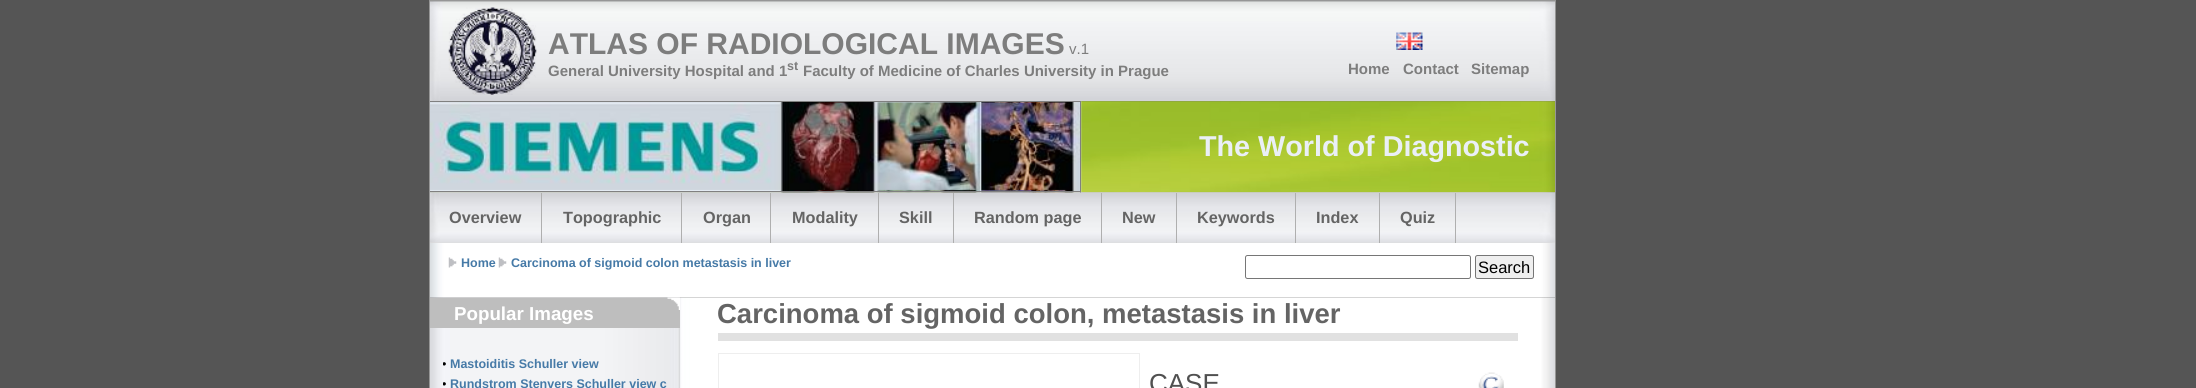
#include <cairo/cairo.h>
#include <math.h>
#include <stddef.h>

typedef struct { double x, y; const char *s; } line_t;
typedef struct { double x, y, w, h; unsigned color; } box_t;
static cairo_t *cr;

static void rgb(unsigned color)
{
	cairo_set_source_rgb(cr, (color >> 16) / 255.0, (color >> 8 & 255) / 255.0, (color & 255) / 255.0);
}

static void rrect(double x, double y, double w, double h, double r)
{
	cairo_new_sub_path(cr);
	cairo_arc(cr, x + w - r, y + h - r, r, 0, M_PI / 2);
	cairo_arc(cr, x + r, y + h - r, r, M_PI / 2, M_PI);
	cairo_arc(cr, x + r, y + r, r, M_PI, 1.5 * M_PI);
	cairo_arc(cr, x + w - r, y + r, r, 1.5 * M_PI, 2 * M_PI);
	cairo_close_path(cr);
}

static void image(const char *path, double x, double y, double w, double h)
{
	cairo_surface_t *image = cairo_image_surface_create_from_png(path);
	cairo_save(cr);
	cairo_set_source_surface(cr, image, x, y);
	cairo_rectangle(cr, x, y, w, h);
	cairo_fill(cr);
	cairo_restore(cr);
	cairo_surface_destroy(image);
}

int main(void) {
	cairo_surface_t *surface = cairo_image_surface_create(CAIRO_FORMAT_RGB24, 2196, 388);
	cr = cairo_create(surface);
	cairo_font_options_t *options = cairo_font_options_create();
	cairo_font_options_set_hint_metrics(options, CAIRO_HINT_METRICS_OFF);
	cairo_font_options_set_hint_style(options, CAIRO_HINT_STYLE_NONE);
	cairo_set_font_options(cr, options);
	cairo_set_miter_limit(cr, 4);
	rgb(0x555555);
	cairo_paint(cr);
	cairo_rectangle(cr, 429.5, 0.5, 1126, 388);
	rgb(0x969696);
	cairo_set_line_width(cr, 1);
	cairo_stroke(cr);
	image("img/1.png", 430, 1, 1125, 101);
	image("img/2.png", 448, 7, 89, 88);
	image("img/3.png", 1396, 32, 27, 18);
	image("img/4.png", 430, 101, 1125, 92);
	image("img/6.png", 430, 192, 1125, 1);
	image("img/5.png", 430, 101, 652, 92);
	{
		static const box_t items[] = {
			{430, 101, 651, 1, 0x808080},
			{1080, 101, 1, 92, 0x808080},
			{430, 191, 651, 1, 0x808080},
			{430, 242, 1125, 1, 0xdcdcdc},
		};
		for (size_t i = 0; i < sizeof items / sizeof *items; i++) {
			rgb(items[i].color);
			cairo_rectangle(cr, items[i].x, items[i].y, items[i].w, items[i].h);
			cairo_fill(cr);
		}
	}
	image("img/7.png", 430, 192, 1125, 51);
	{
		static const box_t items[] = {
			{541, 193, 1, 50, 0xafafaf},
			{681, 193, 1, 50, 0xafafaf},
			{770, 193, 1, 50, 0xafafaf},
			{878, 193, 1, 50, 0xafafaf},
			{953, 193, 1, 50, 0xafafaf},
			{1101, 193, 1, 50, 0xafafaf},
			{1176, 193, 1, 50, 0xafafaf},
			{1295, 193, 1, 50, 0xafafaf},
			{1379, 193, 1, 50, 0xafafaf},
			{1455, 193, 1, 50, 0xafafaf},
		};
		for (size_t i = 0; i < sizeof items / sizeof *items; i++) {
			rgb(items[i].color);
			cairo_rectangle(cr, items[i].x, items[i].y, items[i].w, items[i].h);
			cairo_fill(cr);
		}
	}
	image("img/8.png", 430, 243, 1125, 55);
	image("img/9.png", 448, 257, 9, 11);
	image("img/9.png", 498, 257, 9, 11);
	rrect(1245.5, 255.5, 225, 23, 2);
	rgb(0x767676);
	cairo_stroke(cr);
	rgb(0xefefef);
	rrect(1475.5, 255.5, 58, 23, 2);
	cairo_fill_preserve(cr);
	rgb(0x767676);
	cairo_stroke(cr);
	image("img/10.png", 430, 297, 1125, 91);
	rgb(0xbebebe);
	cairo_rectangle(cr, 430, 298, 250, 30);
	cairo_fill(cr);
	image("img/11.png", 667, 297, 13, 13);
	rgb(0xe1e1e1);
	cairo_rectangle(cr, 718, 333, 800, 8);
	cairo_fill(cr);
	cairo_rectangle(cr, 718.5, 353.5, 421, 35);
	rgb(0xeeeeee);
	cairo_stroke(cr);
	image("img/12.png", 1478, 372, 26, 16);
	cairo_select_font_face(cr, "Liberation Sans", CAIRO_FONT_SLANT_NORMAL, CAIRO_FONT_WEIGHT_BOLD);
	cairo_set_font_size(cr, 30);
	rgb(0x7d7d7d);
	cairo_move_to(cr, 548, 54);
	cairo_show_text(cr, "ATLAS OF RADIOLOGICAL IMAGES");
	cairo_select_font_face(cr, "Liberation Sans", CAIRO_FONT_SLANT_NORMAL, CAIRO_FONT_WEIGHT_NORMAL);
	cairo_set_font_size(cr, 15);
	cairo_move_to(cr, 1069, 54);
	cairo_show_text(cr, "v.1");
	cairo_select_font_face(cr, "Liberation Sans", CAIRO_FONT_SLANT_NORMAL, CAIRO_FONT_WEIGHT_BOLD);
	cairo_move_to(cr, 548, 76);
	cairo_show_text(cr, "General University Hospital and 1");
	cairo_set_font_size(cr, 12.5);
	cairo_move_to(cr, 787, 70);
	cairo_show_text(cr, "st");
	cairo_set_font_size(cr, 15);
	{
		static const line_t items[] = {
			{803, 76, "Faculty of Medicine of Charles University in Prague"},
			{1348, 74, "Home"},
			{1403, 74, "Contact"},
			{1471, 74, "Sitemap"},
		};
		for (size_t i = 0; i < sizeof items / sizeof *items; i++) {
			cairo_move_to(cr, items[i].x, items[i].y);
			cairo_show_text(cr, items[i].s);
		}
	}
	cairo_set_font_size(cr, 28.75);
	rgb(0xeaeff7);
	cairo_move_to(cr, 1199, 156);
	cairo_show_text(cr, "The World of Diagnostic");
	cairo_set_font_size(cr, 16.25);
	rgb(0x646464);
	{
		static const line_t items[] = {
			{449, 223, "Overview"},
			{563, 223, "Topographic"},
			{703, 223, "Organ"},
			{792, 223, "Modality"},
			{899, 223, "Skill"},
			{974, 223, "Random page"},
			{1122, 223, "New"},
			{1197, 223, "Keywords"},
			{1316, 223, "Index"},
			{1400, 223, "Quiz"},
		};
		for (size_t i = 0; i < sizeof items / sizeof *items; i++) {
			cairo_move_to(cr, items[i].x, items[i].y);
			cairo_show_text(cr, items[i].s);
		}
	}
	cairo_set_font_size(cr, 12.5);
	rgb(0x467aa7);
	cairo_move_to(cr, 461, 267);
	cairo_show_text(cr, "Home");
	cairo_move_to(cr, 511, 267);
	cairo_show_text(cr, "Carcinoma of sigmoid colon metastasis in liver");
	cairo_select_font_face(cr, "Liberation Sans", CAIRO_FONT_SLANT_NORMAL, CAIRO_FONT_WEIGHT_NORMAL);
	cairo_set_font_size(cr, 16.5);
	rgb(0x000000);
	cairo_move_to(cr, 1478, 273);
	cairo_show_text(cr, "Search");
	cairo_select_font_face(cr, "Liberation Sans", CAIRO_FONT_SLANT_NORMAL, CAIRO_FONT_WEIGHT_BOLD);
	cairo_set_font_size(cr, 18.75);
	rgb(0xffffff);
	cairo_move_to(cr, 454, 320);
	cairo_show_text(cr, "Popular Images");
	cairo_save(cr);
	cairo_rectangle(cr, 443, 354, 225, 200);
	cairo_clip(cr);
	cairo_select_font_face(cr, "Liberation Sans", CAIRO_FONT_SLANT_NORMAL, CAIRO_FONT_WEIGHT_NORMAL);
	cairo_set_font_size(cr, 12.5);
	rgb(0x000000);
	cairo_move_to(cr, 442, 368);
	cairo_show_text(cr, "•");
	cairo_restore(cr);
	cairo_set_font_size(cr, 12.5);
	rgb(0x467aa7);
	cairo_move_to(cr, 450, 368);
	cairo_show_text(cr, "Mastoiditis Schuller view");
	cairo_save(cr);
	cairo_rectangle(cr, 443, 354, 225, 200);
	cairo_clip(cr);
	cairo_select_font_face(cr, "Liberation Sans", CAIRO_FONT_SLANT_NORMAL, CAIRO_FONT_WEIGHT_NORMAL);
	rgb(0x000000);
	cairo_move_to(cr, 442, 388);
	cairo_show_text(cr, "•");
	cairo_restore(cr);
	cairo_move_to(cr, 450, 388);
	cairo_show_text(cr, "Rundstrom Stenvers Schuller view c");
	cairo_set_font_size(cr, 27.5);
	rgb(0x646464);
	cairo_move_to(cr, 717, 323);
	cairo_show_text(cr, "Carcinoma of sigmoid colon, metastasis in liver");
	cairo_select_font_face(cr, "Liberation Sans", CAIRO_FONT_SLANT_NORMAL, CAIRO_FONT_WEIGHT_NORMAL);
	cairo_set_font_size(cr, 26);
	rgb(0x505050);
	cairo_move_to(cr, 1149, 392);
	cairo_show_text(cr, "CASE");
	cairo_surface_write_to_png(surface, "page.png");
	cairo_font_options_destroy(options);
	cairo_destroy(cr);
	cairo_surface_destroy(surface);
	return 0;
}
